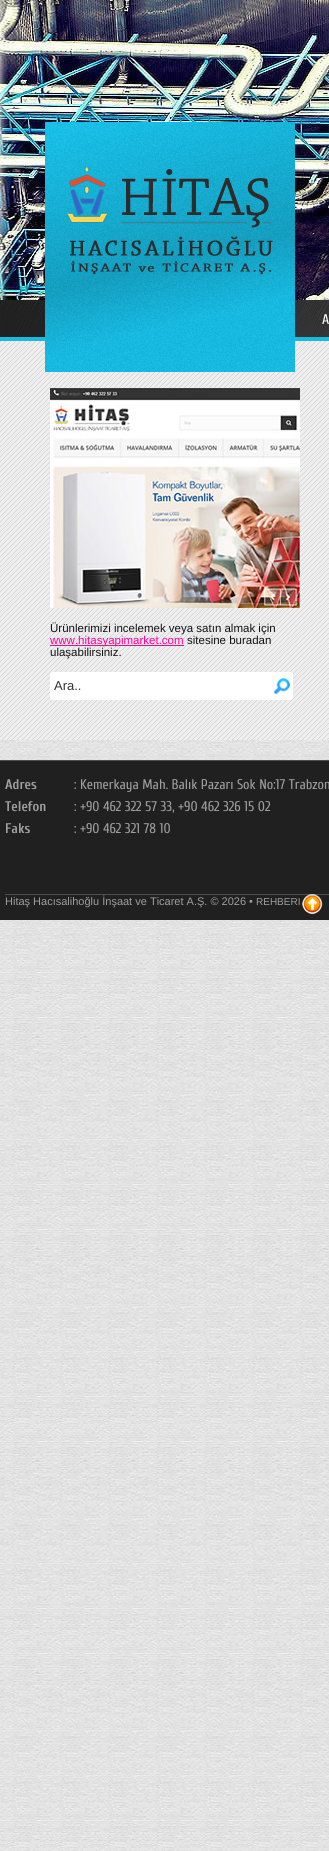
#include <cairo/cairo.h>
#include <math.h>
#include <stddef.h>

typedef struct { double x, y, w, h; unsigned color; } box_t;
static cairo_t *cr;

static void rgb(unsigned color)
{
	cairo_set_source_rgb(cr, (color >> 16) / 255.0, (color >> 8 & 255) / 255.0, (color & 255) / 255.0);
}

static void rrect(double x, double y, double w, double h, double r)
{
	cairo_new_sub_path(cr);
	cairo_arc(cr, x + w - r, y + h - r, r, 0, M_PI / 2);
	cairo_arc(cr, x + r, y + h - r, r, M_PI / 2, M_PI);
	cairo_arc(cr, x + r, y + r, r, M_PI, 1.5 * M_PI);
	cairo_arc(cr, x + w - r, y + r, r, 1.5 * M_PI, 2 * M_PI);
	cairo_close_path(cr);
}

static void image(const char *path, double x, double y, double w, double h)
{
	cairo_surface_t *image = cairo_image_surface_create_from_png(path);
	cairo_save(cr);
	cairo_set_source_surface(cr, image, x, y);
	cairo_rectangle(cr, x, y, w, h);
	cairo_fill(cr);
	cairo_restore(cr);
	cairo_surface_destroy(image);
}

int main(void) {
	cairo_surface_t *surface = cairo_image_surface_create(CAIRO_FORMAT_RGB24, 329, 1851);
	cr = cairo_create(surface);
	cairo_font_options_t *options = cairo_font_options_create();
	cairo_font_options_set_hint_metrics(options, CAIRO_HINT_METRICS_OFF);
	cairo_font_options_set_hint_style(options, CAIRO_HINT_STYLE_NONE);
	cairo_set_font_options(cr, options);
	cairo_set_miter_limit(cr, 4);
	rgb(0xffffff);
	cairo_paint(cr);
	image("img/1.png", 0, 740, 329, 1111);
	image("img/2.png", 0, 0, 329, 300);
	rgb(0xeeeeee);
	cairo_rectangle(cr, 0, 341, 329, 399);
	cairo_fill(cr);
	image("img/4.png", 0, 341, 329, 399);
	image("img/5.png", 1, 300, 328, 37);
	rgb(0x19bae1);
	cairo_rectangle(cr, 0, 337, 329, 4);
	cairo_fill(cr);
	image("img/3.png", 45, 122, 250, 250);
	rgb(0x222222);
	cairo_rectangle(cr, 0, 300, 1, 37);
	cairo_fill(cr);
	image("img/6.png", 50, 388, 250, 220);
	rgb(0xff0099);
	cairo_rectangle(cr, 50, 645, 134, 1);
	cairo_fill(cr);
	rgb(0xffffff);
	rrect(50, 672, 243, 28, 3);
	cairo_fill(cr);
	image("img/7.png", 274, 678, 16, 16);
	{
		static const box_t items[] = {
			{0, 761, 329, 159, 0x212020},
			{0, 760, 329, 1, 0x524d4d},
			{5, 894, 324, 1, 0x524d4d},
		};
		for (size_t i = 0; i < sizeof items / sizeof *items; i++) {
			rgb(items[i].color);
			cairo_rectangle(cr, items[i].x, items[i].y, items[i].w, items[i].h);
			cairo_fill(cr);
		}
	}
	image("img/8.png", 302, 894, 21, 20);
	cairo_select_font_face(cr, "Cuprum", CAIRO_FONT_SLANT_NORMAL, CAIRO_FONT_WEIGHT_NORMAL);
	cairo_set_font_size(cr, 14);
	rgb(0xffffff);
	cairo_move_to(cr, 322, 324);
	cairo_show_text(cr, "A");
	cairo_select_font_face(cr, "Liberation Sans", CAIRO_FONT_SLANT_NORMAL, CAIRO_FONT_WEIGHT_NORMAL);
	cairo_set_font_size(cr, 11.5);
	rgb(0x131313);
	cairo_move_to(cr, 50, 632);
	cairo_show_text(cr, "Ürünlerimizi incelemek veya satın almak için");
	rgb(0xff0099);
	cairo_move_to(cr, 50, 644);
	cairo_show_text(cr, "www.hitasyapimarket.com");
	rgb(0x131313);
	cairo_move_to(cr, 187, 644);
	cairo_show_text(cr, "sitesine buradan");
	cairo_move_to(cr, 50, 656);
	cairo_show_text(cr, "ulaşabilirsiniz.");
	cairo_set_font_size(cr, 13);
	rgb(0x333333);
	cairo_move_to(cr, 54, 690);
	cairo_show_text(cr, "Ara..");
	cairo_select_font_face(cr, "Cuprum", CAIRO_FONT_SLANT_NORMAL, CAIRO_FONT_WEIGHT_BOLD);
	cairo_set_font_size(cr, 14);
	rgb(0x9f9e9e);
	cairo_move_to(cr, 5, 789);
	cairo_show_text(cr, "Adres");
	cairo_select_font_face(cr, "Cuprum", CAIRO_FONT_SLANT_NORMAL, CAIRO_FONT_WEIGHT_NORMAL);
	cairo_move_to(cr, 74, 789);
	cairo_show_text(cr, ": Kemerkaya Mah. Balık Pazarı Sok No:17 Trabzon");
	cairo_select_font_face(cr, "Cuprum", CAIRO_FONT_SLANT_NORMAL, CAIRO_FONT_WEIGHT_BOLD);
	cairo_move_to(cr, 5, 811);
	cairo_show_text(cr, "Telefon");
	cairo_select_font_face(cr, "Cuprum", CAIRO_FONT_SLANT_NORMAL, CAIRO_FONT_WEIGHT_NORMAL);
	cairo_move_to(cr, 74, 811);
	cairo_show_text(cr, ": +90 462 322 57 33, +90 462 326 15 02");
	cairo_select_font_face(cr, "Cuprum", CAIRO_FONT_SLANT_NORMAL, CAIRO_FONT_WEIGHT_BOLD);
	cairo_move_to(cr, 5, 833);
	cairo_show_text(cr, "Faks");
	cairo_select_font_face(cr, "Cuprum", CAIRO_FONT_SLANT_NORMAL, CAIRO_FONT_WEIGHT_NORMAL);
	cairo_move_to(cr, 74, 833);
	cairo_show_text(cr, ": +90 462 321 78 10");
	cairo_select_font_face(cr, "Liberation Sans", CAIRO_FONT_SLANT_NORMAL, CAIRO_FONT_WEIGHT_NORMAL);
	cairo_set_font_size(cr, 11);
	cairo_move_to(cr, 5, 905);
	cairo_show_text(cr, "Hitaş Hacısalihoğlu İnşaat ve Ticaret A.Ş. © 2026 •");
	cairo_set_font_size(cr, 10);
	cairo_move_to(cr, 256, 905);
	cairo_show_text(cr, "REHBERI");
	cairo_surface_write_to_png(surface, "page.png");
	cairo_font_options_destroy(options);
	cairo_destroy(cr);
	cairo_surface_destroy(surface);
	return 0;
}
